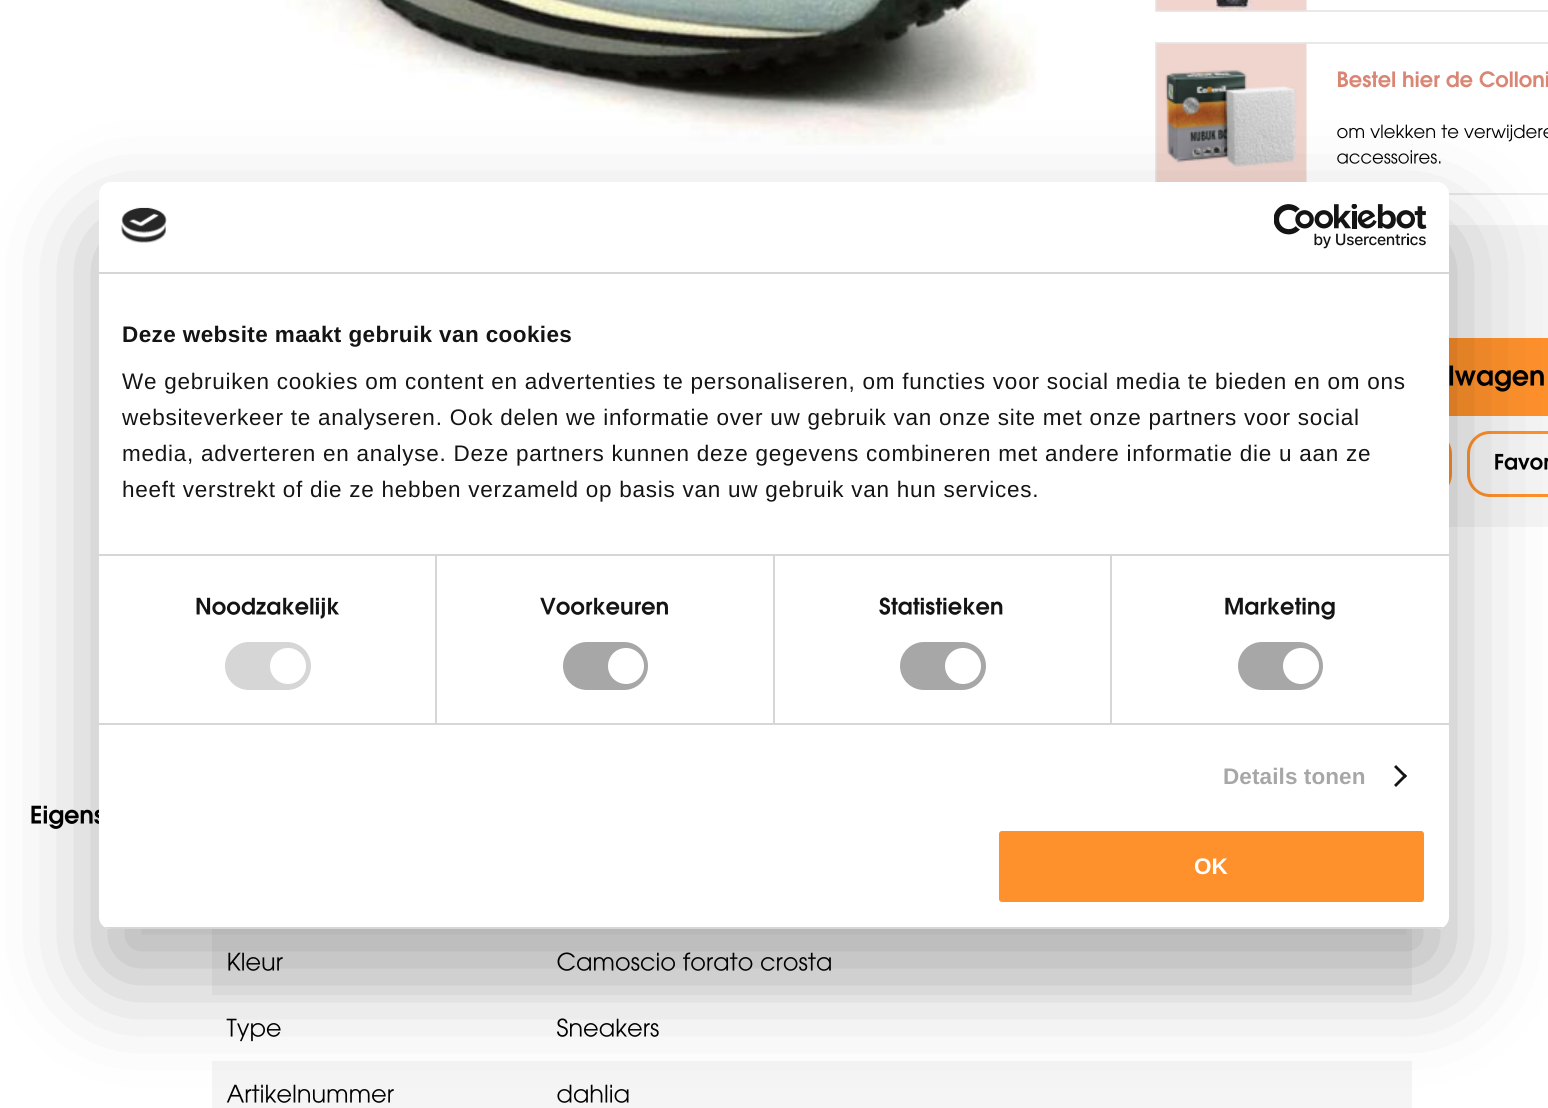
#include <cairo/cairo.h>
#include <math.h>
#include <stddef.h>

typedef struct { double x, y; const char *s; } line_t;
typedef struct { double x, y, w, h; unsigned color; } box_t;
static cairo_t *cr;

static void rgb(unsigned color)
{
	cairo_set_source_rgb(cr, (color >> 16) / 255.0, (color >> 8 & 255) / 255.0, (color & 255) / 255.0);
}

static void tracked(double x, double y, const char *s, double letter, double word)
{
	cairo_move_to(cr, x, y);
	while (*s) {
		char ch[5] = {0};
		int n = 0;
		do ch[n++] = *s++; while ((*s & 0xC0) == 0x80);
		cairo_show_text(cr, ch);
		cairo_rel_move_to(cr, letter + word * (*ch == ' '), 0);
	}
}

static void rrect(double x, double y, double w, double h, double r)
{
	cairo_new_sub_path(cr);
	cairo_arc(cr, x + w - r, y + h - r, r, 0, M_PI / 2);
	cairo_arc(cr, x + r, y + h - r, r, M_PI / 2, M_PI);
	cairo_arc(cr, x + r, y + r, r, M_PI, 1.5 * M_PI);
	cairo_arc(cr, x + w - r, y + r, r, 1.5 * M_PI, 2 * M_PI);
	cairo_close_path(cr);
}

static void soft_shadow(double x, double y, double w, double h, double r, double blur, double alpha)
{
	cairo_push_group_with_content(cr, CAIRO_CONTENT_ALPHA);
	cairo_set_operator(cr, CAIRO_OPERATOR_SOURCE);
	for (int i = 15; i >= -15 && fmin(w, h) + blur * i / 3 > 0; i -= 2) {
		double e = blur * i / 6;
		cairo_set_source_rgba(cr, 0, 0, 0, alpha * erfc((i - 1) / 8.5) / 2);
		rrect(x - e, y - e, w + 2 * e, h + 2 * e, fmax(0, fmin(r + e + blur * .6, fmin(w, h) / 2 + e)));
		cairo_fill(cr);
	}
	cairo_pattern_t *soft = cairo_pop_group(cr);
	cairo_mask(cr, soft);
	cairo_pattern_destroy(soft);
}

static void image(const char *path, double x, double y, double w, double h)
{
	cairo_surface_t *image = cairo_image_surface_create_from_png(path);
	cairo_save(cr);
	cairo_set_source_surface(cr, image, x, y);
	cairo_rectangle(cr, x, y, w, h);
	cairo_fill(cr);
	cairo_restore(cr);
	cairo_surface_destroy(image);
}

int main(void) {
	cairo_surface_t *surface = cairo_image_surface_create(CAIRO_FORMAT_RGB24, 1548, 1108);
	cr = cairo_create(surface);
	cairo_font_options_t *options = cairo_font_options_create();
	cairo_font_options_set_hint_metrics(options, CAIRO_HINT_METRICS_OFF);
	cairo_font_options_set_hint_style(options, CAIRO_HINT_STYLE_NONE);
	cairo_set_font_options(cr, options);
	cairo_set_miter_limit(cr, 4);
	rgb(0xffffff);
	cairo_paint(cr);
	image("img/1.png", 285, 0, 752, 145);
	cairo_rectangle(cr, 1156, -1, 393, 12);
	rgb(0xe9e9e9);
	cairo_stroke(cr);
	image("img/2.png", 1156, 0, 151, 11);
	cairo_rectangle(cr, 1156, 43, 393, 151);
	cairo_stroke(cr);
	image("img/3.png", 1156, 43, 151, 139);
	image("img/4.png", 1337, 71, 211, 17);
	image("img/5.png", 1337, 124, 211, 18);
	image("img/6.png", 1337, 150, 104, 14);
	rgb(0xf5f5f5);
	cairo_rectangle(cr, 1449, 225, 99, 302);
	cairo_fill(cr);
	rgb(0xff912c);
	cairo_rectangle(cr, 1449, 338, 99, 78);
	cairo_fill(cr);
	image("img/7.png", 1449, 365, 95, 27);
	rrect(1186.5, 432.5, 264, 63, 21.5);
	cairo_set_line_width(cr, 3);
	cairo_stroke(cr);
	rrect(1468.5, 432.5, 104, 63, 21.5);
	cairo_stroke(cr);
	image("img/8.png", 1495, 453, 53, 17);
	image("img/9.png", 31, 805, 68, 24);
	rgb(0xf5f5f5);
	cairo_rectangle(cr, 212, 929, 1200, 66);
	cairo_fill(cr);
	image("img/10.png", 228, 952, 55, 19);
	image("img/11.png", 557, 952, 274, 19);
	image("img/12.png", 226, 1018, 55, 24);
	image("img/13.png", 557, 1018, 102, 19);
	cairo_rectangle(cr, 212, 1061, 1200, 47);
	cairo_fill(cr);
	image("img/14.png", 226, 1084, 168, 19);
	image("img/15.png", 557, 1084, 72, 19);
	rgb(0x000000);
	soft_shadow(99, 230, 1350, 747, 12, 51, 0.3);
	rgb(0xffffff);
	rrect(99, 182, 1350, 747, 12);
	cairo_fill(cr);
	rgb(0xd6d6d6);
	cairo_rectangle(cr, 99, 272, 1350, 2);
	cairo_fill(cr);
	image("img/16.png", 121, 207, 46, 36);
	image("img/17.png", 1274, 204, 153, 45);
	{
		static const box_t items[] = {
			{435, 555, 2, 168, 0xd6d6d6},
			{773, 555, 2, 168, 0xd6d6d6},
			{1110, 555, 2, 168, 0xd6d6d6},
			{99, 554, 1350, 2, 0xd6d6d6},
			{99, 723, 1350, 2, 0xd6d6d6},
		};
		for (size_t i = 0; i < sizeof items / sizeof *items; i++) {
			rgb(items[i].color);
			cairo_rectangle(cr, items[i].x, items[i].y, items[i].w, items[i].h);
			cairo_fill(cr);
		}
	}
	image("img/18.png", 196, 597, 143, 22);
	rrect(225, 642, 86, 48, 24);
	cairo_fill(cr);
	rgb(0xffffff);
	cairo_arc(cr, 288, 666, 18, 0, 2 * M_PI);
	cairo_fill(cr);
	image("img/19.png", 540, 597, 128, 18);
	rgb(0xa7a7a7);
	rrect(563, 642, 85, 48, 24);
	cairo_fill(cr);
	rgb(0xffffff);
	cairo_arc(cr, 626, 666, 18, 0, 2 * M_PI);
	cairo_fill(cr);
	image("img/20.png", 879, 597, 124, 18);
	rgb(0xa7a7a7);
	rrect(900, 642, 86, 48, 24);
	cairo_fill(cr);
	rgb(0xffffff);
	cairo_arc(cr, 963, 666, 18, 0, 2 * M_PI);
	cairo_fill(cr);
	image("img/21.png", 1225, 597, 110, 23);
	rgb(0xa7a7a7);
	rrect(1238, 642, 85, 48, 24);
	cairo_fill(cr);
	rgb(0xffffff);
	cairo_arc(cr, 1301, 666, 18, 0, 2 * M_PI);
	cairo_fill(cr);
	rgb(0x141414);
	cairo_new_path(cr);
	cairo_move_to(cr, 1396, 765);
	cairo_line_to(cr, 1407, 776);
	cairo_line_to(cr, 1405, 778);
	cairo_line_to(cr, 1394, 767);
	cairo_close_path(cr);
	cairo_fill(cr);
	cairo_new_path(cr);
	cairo_move_to(cr, 1405, 774);
	cairo_line_to(cr, 1407, 776);
	cairo_line_to(cr, 1396, 787);
	cairo_line_to(cr, 1394, 785);
	cairo_close_path(cr);
	cairo_fill(cr);
	cairo_save(cr);
	rrect(99, 182, 1350, 747, 12);
	cairo_clip(cr);
	rgb(0xd6d6d6);
	cairo_rectangle(cr, 99, 927, 1350, 2);
	cairo_fill(cr);
	cairo_restore(cr);
	rgb(0xff912c);
	rrect(997.5, 829.5, 428, 74, 4.5);
	cairo_fill_preserve(cr);
	rgb(0xffffff);
	cairo_stroke(cr);
	cairo_select_font_face(cr, "Liberation Sans", CAIRO_FONT_SLANT_NORMAL, CAIRO_FONT_WEIGHT_BOLD);
	cairo_set_font_size(cr, 22.5);
	rgb(0x141414);
	tracked(122, 342, "Deze website maakt gebruik van cookies", 0.4, 0);
	cairo_select_font_face(cr, "Liberation Sans", CAIRO_FONT_SLANT_NORMAL, CAIRO_FONT_WEIGHT_NORMAL);
	{
		static const line_t items[] = {
			{122, 389, "We gebruiken cookies om content en advertenties te personaliseren, om functies voor social media te bieden en om ons"},
			{122, 425, "websiteverkeer te analyseren. Ook delen we informatie over uw gebruik van onze site met onze partners voor social"},
			{122, 461, "media, adverteren en analyse. Deze partners kunnen deze gegevens combineren met andere informatie die u aan ze"},
			{122, 497, "heeft verstrekt of die ze hebben verzameld op basis van uw gebruik van hun services."},
		};
		for (size_t i = 0; i < sizeof items / sizeof *items; i++) {
			tracked(items[i].x, items[i].y, items[i].s, 0.75, 0);
		}
	}
	cairo_select_font_face(cr, "Liberation Sans", CAIRO_FONT_SLANT_NORMAL, CAIRO_FONT_WEIGHT_BOLD);
	rgb(0xa7a7a7);
	tracked(1223, 784, "Details tonen", 0.1, 0);
	rgb(0xffffff);
	cairo_move_to(cr, 1194, 874);
	cairo_show_text(cr, "OK");
	cairo_surface_write_to_png(surface, "page.png");
	cairo_font_options_destroy(options);
	cairo_destroy(cr);
	cairo_surface_destroy(surface);
	return 0;
}
